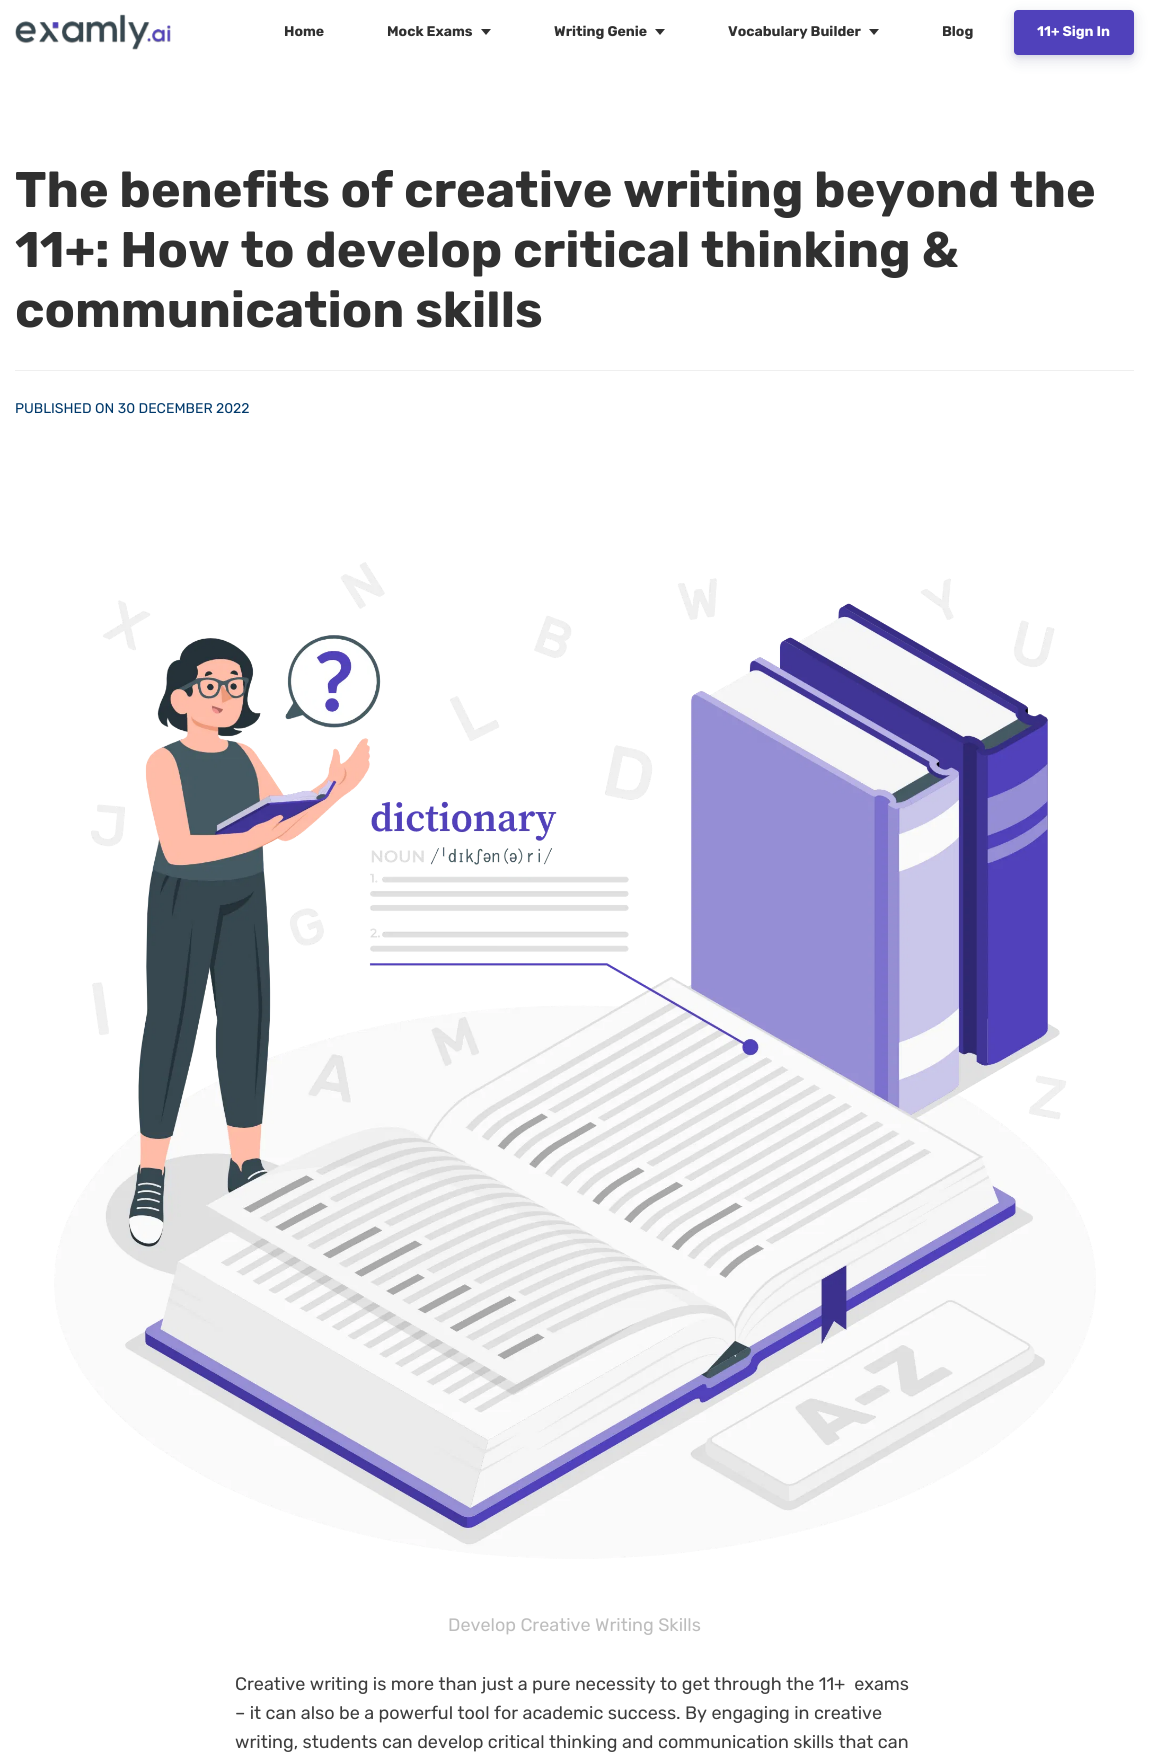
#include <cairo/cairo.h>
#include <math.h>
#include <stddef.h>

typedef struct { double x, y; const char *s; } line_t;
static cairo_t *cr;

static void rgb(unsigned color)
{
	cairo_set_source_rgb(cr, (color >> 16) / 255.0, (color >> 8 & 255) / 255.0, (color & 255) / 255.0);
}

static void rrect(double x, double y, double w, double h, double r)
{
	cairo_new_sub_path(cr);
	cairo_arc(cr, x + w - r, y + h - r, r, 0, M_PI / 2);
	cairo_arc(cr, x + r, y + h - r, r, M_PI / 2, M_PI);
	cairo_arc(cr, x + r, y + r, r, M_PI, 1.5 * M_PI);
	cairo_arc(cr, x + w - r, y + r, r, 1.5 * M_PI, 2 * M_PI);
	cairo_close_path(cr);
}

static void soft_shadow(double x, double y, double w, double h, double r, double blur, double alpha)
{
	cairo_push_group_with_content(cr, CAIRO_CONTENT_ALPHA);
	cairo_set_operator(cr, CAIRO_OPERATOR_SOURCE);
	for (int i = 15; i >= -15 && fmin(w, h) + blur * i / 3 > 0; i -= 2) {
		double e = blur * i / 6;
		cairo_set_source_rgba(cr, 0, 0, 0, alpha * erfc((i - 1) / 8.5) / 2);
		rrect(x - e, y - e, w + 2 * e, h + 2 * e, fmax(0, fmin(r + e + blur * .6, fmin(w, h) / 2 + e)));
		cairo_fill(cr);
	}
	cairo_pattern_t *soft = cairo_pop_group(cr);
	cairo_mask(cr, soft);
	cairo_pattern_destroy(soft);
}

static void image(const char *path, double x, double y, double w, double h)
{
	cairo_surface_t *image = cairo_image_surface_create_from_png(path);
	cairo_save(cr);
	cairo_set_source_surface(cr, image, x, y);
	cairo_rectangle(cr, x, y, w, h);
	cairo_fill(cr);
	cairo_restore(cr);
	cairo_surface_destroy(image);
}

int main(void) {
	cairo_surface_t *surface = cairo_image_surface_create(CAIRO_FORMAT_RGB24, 1149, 1752);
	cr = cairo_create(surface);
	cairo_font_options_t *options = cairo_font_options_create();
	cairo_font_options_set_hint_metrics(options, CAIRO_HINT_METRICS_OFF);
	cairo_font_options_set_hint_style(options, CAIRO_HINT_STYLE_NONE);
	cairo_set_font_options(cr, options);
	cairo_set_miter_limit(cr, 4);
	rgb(0xffffff);
	cairo_paint(cr);
	image("img/1.png", 15, 14, 156, 36);
	rgb(0x303030);
	cairo_new_path(cr);
	cairo_move_to(cr, 481, 29);
	cairo_line_to(cr, 491, 29);
	cairo_line_to(cr, 486, 35);
	cairo_close_path(cr);
	cairo_fill(cr);
	cairo_new_path(cr);
	cairo_move_to(cr, 655, 29);
	cairo_line_to(cr, 665, 29);
	cairo_line_to(cr, 660, 35);
	cairo_close_path(cr);
	cairo_fill(cr);
	cairo_new_path(cr);
	cairo_move_to(cr, 869, 29);
	cairo_line_to(cr, 879, 29);
	cairo_line_to(cr, 874, 35);
	cairo_close_path(cr);
	cairo_fill(cr);
	rgb(0x252c61);
	soft_shadow(1014, 15, 120, 45, 4, 7.5, 0.15);
	rgb(0x8890c3);
	soft_shadow(1014, 12, 120, 45, 4, 2, 0.2);
	rgb(0x5041bb);
	rrect(1014, 10, 120, 45, 4);
	cairo_fill(cr);
	rgb(0xefefef);
	cairo_rectangle(cr, 15, 370, 1119, 1);
	cairo_fill(cr);
	image("img/2.png", 54, 562, 1042, 997);
	cairo_select_font_face(cr, "Rubik", CAIRO_FONT_SLANT_NORMAL, CAIRO_FONT_WEIGHT_BOLD);
	cairo_set_font_size(cr, 14);
	rgb(0x303030);
	{
		static const line_t items[] = {
			{284, 36, "Home"},
			{387, 36, "Mock Exams"},
			{554, 36, "Writing Genie"},
			{728, 36, "Vocabulary Builder"},
			{942, 36, "Blog"},
		};
		for (size_t i = 0; i < sizeof items / sizeof *items; i++) {
			cairo_move_to(cr, items[i].x, items[i].y);
			cairo_show_text(cr, items[i].s);
		}
	}
	rgb(0xffffff);
	cairo_move_to(cr, 1037, 36);
	cairo_show_text(cr, "11+ Sign In");
	cairo_set_font_size(cr, 50);
	rgb(0x303030);
	{
		static const line_t items[] = {
			{15, 207, "The benefits of creative writing beyond the"},
			{15, 267, "11+: How to develop critical thinking &"},
			{15, 327, "communication skills"},
		};
		for (size_t i = 0; i < sizeof items / sizeof *items; i++) {
			cairo_move_to(cr, items[i].x, items[i].y);
			cairo_show_text(cr, items[i].s);
		}
	}
	cairo_select_font_face(cr, "Rubik", CAIRO_FONT_SLANT_NORMAL, CAIRO_FONT_WEIGHT_NORMAL);
	cairo_set_font_size(cr, 14);
	rgb(0x00396b);
	cairo_move_to(cr, 15, 413);
	cairo_show_text(cr, "PUBLISHED ON 30 DECEMBER 2022");
	cairo_set_font_size(cr, 18);
	rgb(0xbdbdbd);
	cairo_move_to(cr, 448, 1631);
	cairo_show_text(cr, "Develop Creative Writing Skills");
	rgb(0x3d3d3d);
	{
		static const line_t items[] = {
			{235, 1690, "Creative writing is more than just a pure necessity to get through the 11+  exams"},
			{235, 1719, "– it can also be a powerful tool for academic success. By engaging in creative"},
			{235, 1748, "writing, students can develop critical thinking and communication skills that can"},
		};
		for (size_t i = 0; i < sizeof items / sizeof *items; i++) {
			cairo_move_to(cr, items[i].x, items[i].y);
			cairo_show_text(cr, items[i].s);
		}
	}
	cairo_surface_write_to_png(surface, "page.png");
	cairo_font_options_destroy(options);
	cairo_destroy(cr);
	cairo_surface_destroy(surface);
	return 0;
}
